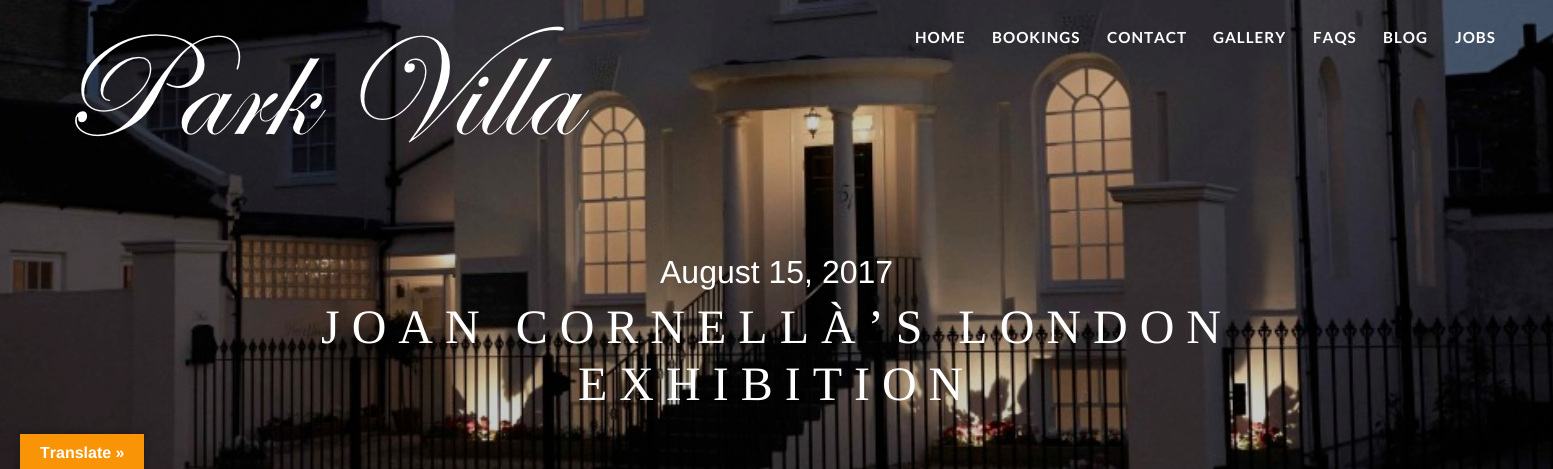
#include <cairo/cairo.h>
#include <math.h>
#include <stddef.h>

typedef struct { double x, y; const char *s; } line_t;
static cairo_t *cr;

static void rgb(unsigned color)
{
	cairo_set_source_rgb(cr, (color >> 16) / 255.0, (color >> 8 & 255) / 255.0, (color & 255) / 255.0);
}

static void tracked(double x, double y, const char *s, double letter, double word)
{
	cairo_move_to(cr, x, y);
	while (*s) {
		char ch[5] = {0};
		int n = 0;
		do ch[n++] = *s++; while ((*s & 0xC0) == 0x80);
		cairo_show_text(cr, ch);
		cairo_rel_move_to(cr, letter + word * (*ch == ' '), 0);
	}
}

static void rrect(double x, double y, double w, double h, double r)
{
	cairo_new_sub_path(cr);
	cairo_arc(cr, x + w - r, y + h - r, r, 0, M_PI / 2);
	cairo_arc(cr, x + r, y + h - r, r, M_PI / 2, M_PI);
	cairo_arc(cr, x + r, y + r, r, M_PI, 1.5 * M_PI);
	cairo_arc(cr, x + w - r, y + r, r, 1.5 * M_PI, 2 * M_PI);
	cairo_close_path(cr);
}

static void soft_shadow(double x, double y, double w, double h, double r, double blur, double alpha)
{
	cairo_push_group_with_content(cr, CAIRO_CONTENT_ALPHA);
	cairo_set_operator(cr, CAIRO_OPERATOR_SOURCE);
	for (int i = 15; i >= -15 && fmin(w, h) + blur * i / 3 > 0; i -= 2) {
		double e = blur * i / 6;
		cairo_set_source_rgba(cr, 0, 0, 0, alpha * erfc((i - 1) / 8.5) / 2);
		rrect(x - e, y - e, w + 2 * e, h + 2 * e, fmax(0, fmin(r + e + blur * .6, fmin(w, h) / 2 + e)));
		cairo_fill(cr);
	}
	cairo_pattern_t *soft = cairo_pop_group(cr);
	cairo_mask(cr, soft);
	cairo_pattern_destroy(soft);
}

static void image(const char *path, double x, double y, double w, double h)
{
	cairo_surface_t *image = cairo_image_surface_create_from_png(path);
	cairo_save(cr);
	cairo_set_source_surface(cr, image, x, y);
	cairo_rectangle(cr, x, y, w, h);
	cairo_fill(cr);
	cairo_restore(cr);
	cairo_surface_destroy(image);
}

int main(void) {
	cairo_surface_t *surface = cairo_image_surface_create(CAIRO_FORMAT_RGB24, 1553, 469);
	cr = cairo_create(surface);
	cairo_font_options_t *options = cairo_font_options_create();
	cairo_font_options_set_hint_metrics(options, CAIRO_HINT_METRICS_OFF);
	cairo_font_options_set_hint_style(options, CAIRO_HINT_STYLE_NONE);
	cairo_set_font_options(cr, options);
	cairo_set_miter_limit(cr, 4);
	rgb(0xffffff);
	cairo_paint(cr);
	image("img/1.png", 0, 0, 1553, 469);
	image("img/2.png", 75, 26, 514, 117);
	rgb(0x000000);
	soft_shadow(20, 434, 124, 35, 0, 4.5, 0.3);
	rgb(0xf89406);
	cairo_rectangle(cr, 20, 434, 124, 35);
	cairo_fill(cr);
	cairo_select_font_face(cr, "Lato", CAIRO_FONT_SLANT_NORMAL, CAIRO_FONT_WEIGHT_BOLD);
	cairo_set_font_size(cr, 15.25);
	rgb(0xffffff);
	{
		static const line_t items[] = {
			{915, 43, "HOME"},
			{992, 43, "BOOKINGS"},
			{1107, 43, "CONTACT"},
			{1213, 43, "GALLERY"},
			{1313, 43, "FAQS"},
			{1383, 43, "BLOG"},
			{1455, 43, "JOBS"},
		};
		for (size_t i = 0; i < sizeof items / sizeof *items; i++) {
			tracked(items[i].x, items[i].y, items[i].s, 1, 0);
		}
	}
	cairo_select_font_face(cr, "Liberation Sans", CAIRO_FONT_SLANT_NORMAL, CAIRO_FONT_WEIGHT_NORMAL);
	cairo_set_font_size(cr, 32);
	cairo_move_to(cr, 660, 283);
	cairo_show_text(cr, "August 15, 2017");
	cairo_select_font_face(cr, "Liberation Serif", CAIRO_FONT_SLANT_NORMAL, CAIRO_FONT_WEIGHT_NORMAL);
	cairo_set_font_size(cr, 48);
	tracked(321, 343, "JOAN CORNELLÀ’S LONDON", 12, 0);
	tracked(578, 400, "EXHIBITION", 12, 0);
	cairo_select_font_face(cr, "Liberation Sans", CAIRO_FONT_SLANT_NORMAL, CAIRO_FONT_WEIGHT_BOLD);
	cairo_set_font_size(cr, 16);
	cairo_move_to(cr, 40, 458);
	cairo_show_text(cr, "Translate »");
	cairo_surface_write_to_png(surface, "page.png");
	cairo_font_options_destroy(options);
	cairo_destroy(cr);
	cairo_surface_destroy(surface);
	return 0;
}
